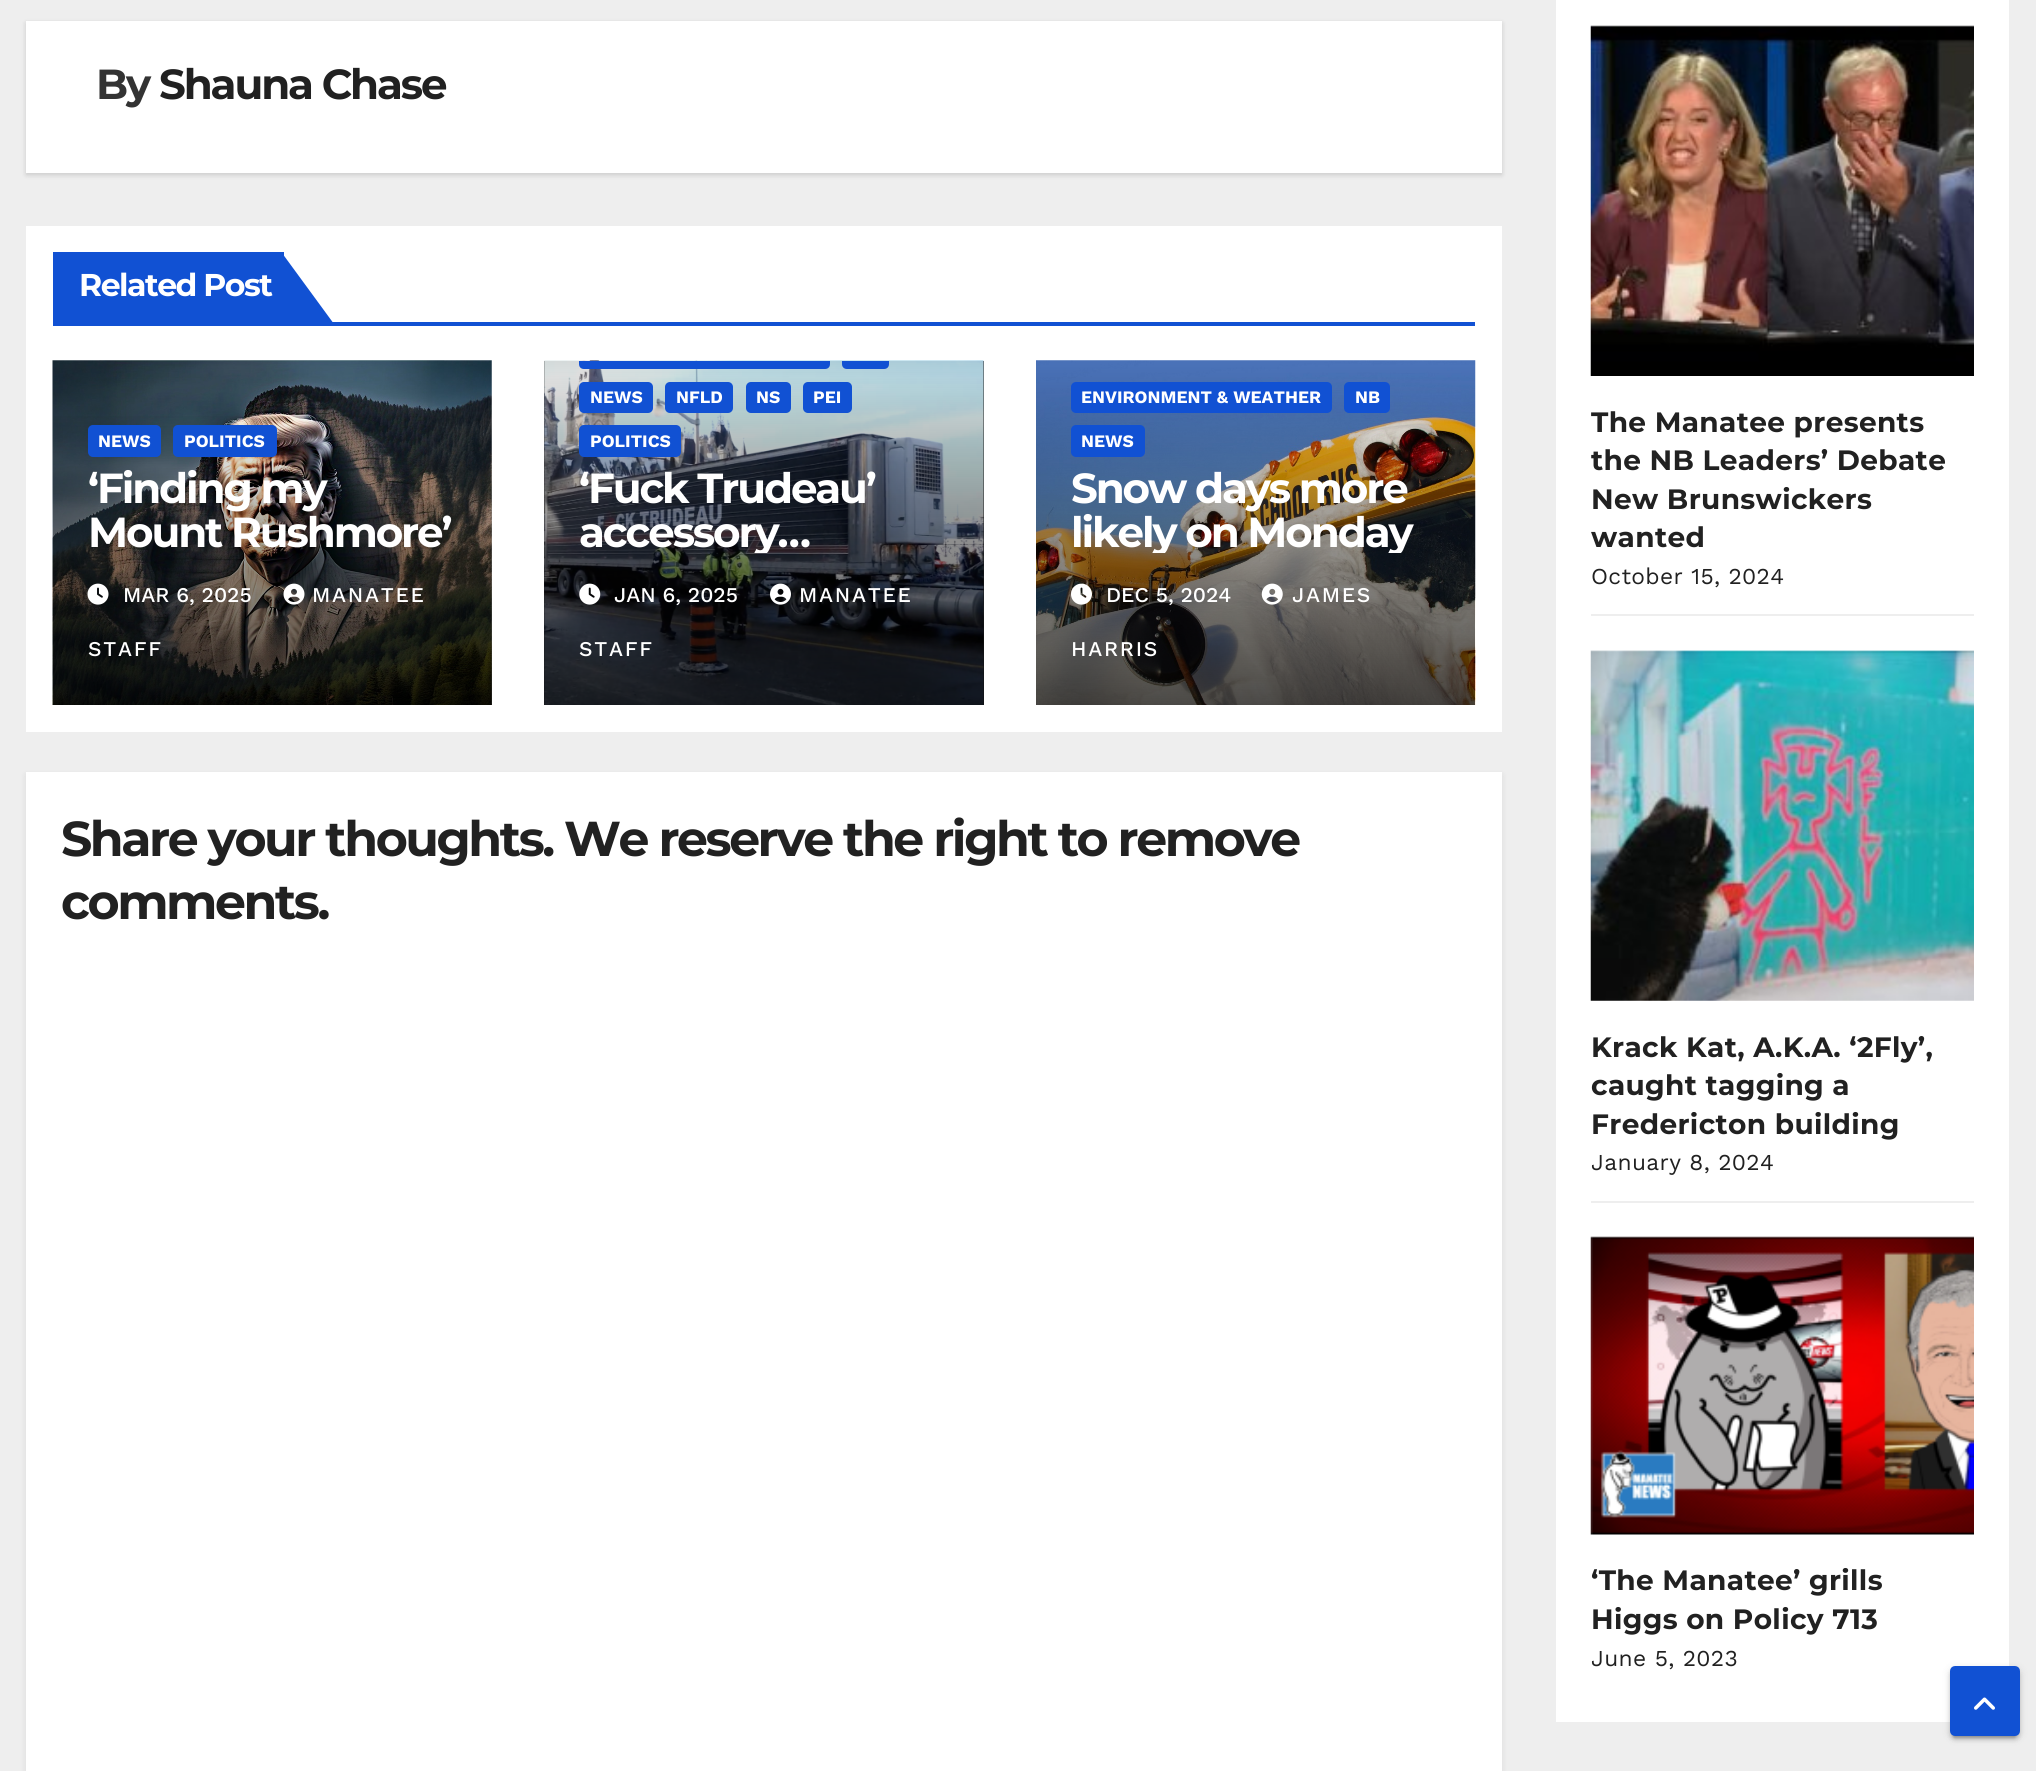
#include <cairo/cairo.h>
#include <math.h>
#include <stddef.h>

typedef struct { double x, y; const char *s; } line_t;
typedef struct { double x, y, w, h; unsigned color; } box_t;
static cairo_t *cr;

static void rgb(unsigned color)
{
	cairo_set_source_rgb(cr, (color >> 16) / 255.0, (color >> 8 & 255) / 255.0, (color & 255) / 255.0);
}

static void tracked(double x, double y, const char *s, double letter, double word)
{
	cairo_move_to(cr, x, y);
	while (*s) {
		char ch[5] = {0};
		int n = 0;
		do ch[n++] = *s++; while ((*s & 0xC0) == 0x80);
		cairo_show_text(cr, ch);
		cairo_rel_move_to(cr, letter + word * (*ch == ' '), 0);
	}
}

static void rrect(double x, double y, double w, double h, double r)
{
	cairo_new_sub_path(cr);
	cairo_arc(cr, x + w - r, y + h - r, r, 0, M_PI / 2);
	cairo_arc(cr, x + r, y + h - r, r, M_PI / 2, M_PI);
	cairo_arc(cr, x + r, y + r, r, M_PI, 1.5 * M_PI);
	cairo_arc(cr, x + w - r, y + r, r, 1.5 * M_PI, 2 * M_PI);
	cairo_close_path(cr);
}

static void soft_shadow(double x, double y, double w, double h, double r, double blur, double alpha)
{
	cairo_push_group_with_content(cr, CAIRO_CONTENT_ALPHA);
	cairo_set_operator(cr, CAIRO_OPERATOR_SOURCE);
	for (int i = 15; i >= -15 && fmin(w, h) + blur * i / 3 > 0; i -= 2) {
		double e = blur * i / 6;
		cairo_set_source_rgba(cr, 0, 0, 0, alpha * erfc((i - 1) / 8.5) / 2);
		rrect(x - e, y - e, w + 2 * e, h + 2 * e, fmax(0, fmin(r + e + blur * .6, fmin(w, h) / 2 + e)));
		cairo_fill(cr);
	}
	cairo_pattern_t *soft = cairo_pop_group(cr);
	cairo_mask(cr, soft);
	cairo_pattern_destroy(soft);
}

static void image(const char *path, double x, double y, double w, double h)
{
	cairo_surface_t *image = cairo_image_surface_create_from_png(path);
	cairo_save(cr);
	cairo_set_source_surface(cr, image, x, y);
	cairo_rectangle(cr, x, y, w, h);
	cairo_fill(cr);
	cairo_restore(cr);
	cairo_surface_destroy(image);
}

int main(void) {
	cairo_surface_t *surface = cairo_image_surface_create(CAIRO_FORMAT_RGB24, 2036, 1771);
	cr = cairo_create(surface);
	cairo_font_options_t *options = cairo_font_options_create();
	cairo_font_options_set_hint_metrics(options, CAIRO_HINT_METRICS_OFF);
	cairo_font_options_set_hint_style(options, CAIRO_HINT_STYLE_NONE);
	cairo_set_font_options(cr, options);
	cairo_set_miter_limit(cr, 4);
	cairo_pattern_t *gradient;
	rgb(0xeeeeee);
	cairo_paint(cr);
	rgb(0x000000);
	soft_shadow(26, 23, 1476, 152, 0, 2.5, 0.15);
	{
		static const box_t items[] = {
			{26, 21, 1476, 152, 0xffffff},
			{26, 226, 1476, 506, 0xffffff},
			{53, 322, 1422, 4, 0x1151d3},
			{53, 252, 231, 70, 0x1151d3},
		};
		for (size_t i = 0; i < sizeof items / sizeof *items; i++) {
			rgb(items[i].color);
			cairo_rectangle(cr, items[i].x, items[i].y, items[i].w, items[i].h);
			cairo_fill(cr);
		}
	}
	cairo_new_path(cr);
	cairo_move_to(cr, 282, 253);
	cairo_line_to(cr, 282, 324);
	cairo_line_to(cr, 334, 324);
	cairo_close_path(cr);
	cairo_fill(cr);
	image("img/1.png", 52, 360, 440, 345);
	gradient = cairo_pattern_create_linear(272, 408, 272, 705);
	cairo_pattern_add_color_stop_rgba(gradient, 0, 0, 0, 0, 0);
	cairo_pattern_add_color_stop_rgba(gradient, 0.5, 0, 0, 0, 0.4);
	cairo_pattern_add_color_stop_rgba(gradient, 1, 0, 0, 0, 0.7);
	cairo_set_source(cr, gradient);
	cairo_pattern_destroy(gradient);
	cairo_rectangle(cr, 53, 416, 439, 289);
	cairo_fill(cr);
	rgb(0x1151d3);
	rrect(88, 425, 73, 32, 5);
	cairo_fill(cr);
	rrect(173, 425, 104, 32, 5);
	cairo_fill(cr);
	image("img/2.png", 87, 583, 22, 22);
	image("img/3.png", 283, 583, 22, 22);
	rgb(0x333333);
	cairo_rectangle(cr, 544, 361, 440, 344);
	cairo_fill(cr);
	image("img/4.png", 544, 360, 440, 345);
	gradient = cairo_pattern_create_linear(764, 320, 764, 705);
	cairo_pattern_add_color_stop_rgba(gradient, 0, 0, 0, 0, 0);
	cairo_pattern_add_color_stop_rgba(gradient, 0.5, 0, 0, 0, 0.4);
	cairo_pattern_add_color_stop_rgba(gradient, 1, 0, 0, 0, 0.7);
	cairo_set_source(cr, gradient);
	cairo_pattern_destroy(gradient);
	cairo_rectangle(cr, 544, 361, 440, 344);
	cairo_fill(cr);
	rgb(0x1151d3);
	cairo_new_path(cr);
	cairo_move_to(cr, 579, 361);
	cairo_line_to(cr, 830, 361);
	cairo_line_to(cr, 830, 364);
	cairo_curve_to(cr, 830, 367, 828, 369, 825, 369);
	cairo_line_to(cr, 584, 369);
	cairo_curve_to(cr, 581, 369, 579, 367, 579, 364);
	cairo_close_path(cr);
	cairo_fill(cr);
	cairo_new_path(cr);
	cairo_move_to(cr, 842, 361);
	cairo_line_to(cr, 889, 361);
	cairo_line_to(cr, 889, 364);
	cairo_curve_to(cr, 889, 367, 887, 369, 884, 369);
	cairo_line_to(cr, 847, 369);
	cairo_curve_to(cr, 844, 369, 842, 367, 842, 364);
	cairo_close_path(cr);
	cairo_fill(cr);
	rrect(579, 382, 74, 31, 5);
	cairo_fill(cr);
	rrect(665, 382, 68, 31, 5);
	cairo_fill(cr);
	rrect(746, 382, 45, 31, 5);
	cairo_fill(cr);
	rrect(803, 382, 49, 31, 5);
	cairo_fill(cr);
	rrect(579, 425, 102, 32, 5);
	cairo_fill(cr);
	image("img/5.png", 579, 583, 22, 22);
	image("img/6.png", 770, 583, 21, 22);
	image("img/7.png", 1036, 360, 440, 345);
	rrect(1071, 382, 261, 31, 5);
	cairo_fill(cr);
	rrect(1344, 382, 46, 31, 5);
	cairo_fill(cr);
	rrect(1071, 425, 74, 32, 5);
	cairo_fill(cr);
	image("img/8.png", 1261, 583, 22, 22);
	image("img/9.png", 1071, 583, 21, 22);
	rgb(0x000000);
	soft_shadow(26, 775, 1476, 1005, 0, 3.5, 0.08);
	{
		static const box_t items[] = {
			{26, 772, 1476, 999, 0xffffff},
			{1556, 0, 453, 1722, 0xffffff},
			{1591, 614, 383, 2, 0xeeeeee},
		};
		for (size_t i = 0; i < sizeof items / sizeof *items; i++) {
			rgb(items[i].color);
			cairo_rectangle(cr, items[i].x, items[i].y, items[i].w, items[i].h);
			cairo_fill(cr);
		}
	}
	image("img/10.png", 1590, 25, 384, 351);
	cairo_rectangle(cr, 1591, 1201, 383, 2);
	cairo_fill(cr);
	image("img/11.png", 1590, 650, 384, 351);
	image("img/12.png", 1590, 1236, 384, 299);
	rgb(0x000000);
	soft_shadow(1950, 1668, 70, 70, 5, 4.5, 0.12);
	soft_shadow(1953, 1675, 63, 63, 2, 1, 0.2);
	soft_shadow(1950, 1670, 70, 70, 5, 2, 0.14);
	rgb(0x1151d3);
	rrect(1952, 1668, 66, 66, 3);
	cairo_fill_preserve(cr);
	cairo_set_line_width(cr, 4);
	cairo_stroke(cr);
	image("img/13.png", 1974, 1697, 21, 13);
	cairo_select_font_face(cr, "Montserrat", CAIRO_FONT_SLANT_NORMAL, CAIRO_FONT_WEIGHT_BOLD);
	cairo_set_font_size(cr, 42);
	rgb(0x333333);
	tracked(96, 99, "By", -2.1, 0);
	rgb(0x212121);
	tracked(159, 99, "Shauna Chase", -2.1, 0);
	cairo_set_font_size(cr, 31.5);
	rgb(0xffffff);
	tracked(79, 296, "Related Post", -1.5, 0);
	cairo_select_font_face(cr, "Work Sans", CAIRO_FONT_SLANT_NORMAL, CAIRO_FONT_WEIGHT_BOLD);
	cairo_set_font_size(cr, 17.5);
	cairo_move_to(cr, 98, 447);
	cairo_show_text(cr, "NEWS");
	cairo_move_to(cr, 184, 447);
	cairo_show_text(cr, "POLITICS");
	cairo_select_font_face(cr, "Montserrat", CAIRO_FONT_SLANT_NORMAL, CAIRO_FONT_WEIGHT_BOLD);
	cairo_set_font_size(cr, 42);
	tracked(88, 503, "‘Finding my", -2.1, 0);
	tracked(88, 547, "Mount Rushmore’", -2.1, 0);
	cairo_select_font_face(cr, "Work Sans Medium", CAIRO_FONT_SLANT_NORMAL, CAIRO_FONT_WEIGHT_NORMAL);
	cairo_set_font_size(cr, 21);
	cairo_move_to(cr, 123, 602);
	cairo_show_text(cr, "MAR 6, 2025");
	tracked(312, 602, "MANATEE", 1.75, 0);
	tracked(88, 656, "STAFF", 1.75, 0);
	cairo_select_font_face(cr, "Work Sans", CAIRO_FONT_SLANT_NORMAL, CAIRO_FONT_WEIGHT_BOLD);
	cairo_set_font_size(cr, 17.5);
	{
		static const line_t items[] = {
			{590, 403, "NEWS"},
			{676, 403, "NFLD"},
			{756, 403, "NS"},
			{813, 403, "PEI"},
			{590, 447, "POLITICS"},
		};
		for (size_t i = 0; i < sizeof items / sizeof *items; i++) {
			cairo_move_to(cr, items[i].x, items[i].y);
			cairo_show_text(cr, items[i].s);
		}
	}
	cairo_select_font_face(cr, "Montserrat", CAIRO_FONT_SLANT_NORMAL, CAIRO_FONT_WEIGHT_BOLD);
	cairo_set_font_size(cr, 42);
	tracked(579, 503, "‘Fuck Trudeau’", -2.1, 0);
	cairo_save(cr);
	cairo_rectangle(cr, 579, 466, 370, 87);
	cairo_clip(cr);
	tracked(579, 547, "accessory…", -2.1, 0);
	cairo_restore(cr);
	cairo_select_font_face(cr, "Work Sans Medium", CAIRO_FONT_SLANT_NORMAL, CAIRO_FONT_WEIGHT_NORMAL);
	cairo_set_font_size(cr, 21);
	cairo_move_to(cr, 614, 602);
	cairo_show_text(cr, "JAN 6, 2025");
	tracked(799, 602, "MANATEE", 1.75, 0);
	tracked(579, 656, "STAFF", 1.75, 0);
	cairo_select_font_face(cr, "Work Sans", CAIRO_FONT_SLANT_NORMAL, CAIRO_FONT_WEIGHT_BOLD);
	cairo_set_font_size(cr, 17.5);
	{
		static const line_t items[] = {
			{1081, 403, "ENVIRONMENT & WEATHER"},
			{1355, 403, "NB"},
			{1081, 447, "NEWS"},
		};
		for (size_t i = 0; i < sizeof items / sizeof *items; i++) {
			cairo_move_to(cr, items[i].x, items[i].y);
			cairo_show_text(cr, items[i].s);
		}
	}
	cairo_select_font_face(cr, "Montserrat", CAIRO_FONT_SLANT_NORMAL, CAIRO_FONT_WEIGHT_BOLD);
	cairo_set_font_size(cr, 42);
	tracked(1071, 503, "Snow days more", -2.1, 0);
	cairo_save(cr);
	cairo_rectangle(cr, 1071, 466, 369, 87);
	cairo_clip(cr);
	tracked(1071, 547, "likely on Monday", -2.1, 0);
	cairo_restore(cr);
	cairo_select_font_face(cr, "Work Sans Medium", CAIRO_FONT_SLANT_NORMAL, CAIRO_FONT_WEIGHT_NORMAL);
	cairo_set_font_size(cr, 21);
	tracked(1292, 602, "JAMES", 1.75, 0);
	tracked(1071, 656, "HARRIS", 1.75, 0);
	cairo_move_to(cr, 1106, 602);
	cairo_show_text(cr, "DEC 5, 2024");
	cairo_select_font_face(cr, "Montserrat", CAIRO_FONT_SLANT_NORMAL, CAIRO_FONT_WEIGHT_BOLD);
	cairo_set_font_size(cr, 49);
	rgb(0x212121);
	tracked(61, 856, "Share your thoughts. We reserve the right to remove", -2.45, 0);
	tracked(61, 919, "comments.", -2.45, 0);
	cairo_save(cr);
	cairo_rectangle(cr, 1591, 9, 383, 605);
	cairo_clip(cr);
	cairo_set_font_size(cr, 28);
	tracked(1591, 432, "The Manatee presents", 0.35, 0);
	cairo_restore(cr);
	cairo_set_font_size(cr, 28);
	{
		static const line_t items[] = {
			{1591, 470, "the NB Leaders’ Debate"},
			{1591, 509, "New Brunswickers"},
			{1591, 547, "wanted"},
		};
		for (size_t i = 0; i < sizeof items / sizeof *items; i++) {
			tracked(items[i].x, items[i].y, items[i].s, 0.35, 0);
		}
	}
	cairo_select_font_face(cr, "Work Sans", CAIRO_FONT_SLANT_NORMAL, CAIRO_FONT_WEIGHT_NORMAL);
	cairo_set_font_size(cr, 22.75);
	tracked(1591, 584, "October 15, 2024", 0.35, 0);
	cairo_select_font_face(cr, "Montserrat", CAIRO_FONT_SLANT_NORMAL, CAIRO_FONT_WEIGHT_BOLD);
	cairo_set_font_size(cr, 28);
	{
		static const line_t items[] = {
			{1591, 1057, "Krack Kat, A.K.A. ‘2Fly’,"},
			{1591, 1095, "caught tagging a"},
			{1591, 1134, "Fredericton building"},
		};
		for (size_t i = 0; i < sizeof items / sizeof *items; i++) {
			tracked(items[i].x, items[i].y, items[i].s, 0.35, 0);
		}
	}
	cairo_select_font_face(cr, "Work Sans", CAIRO_FONT_SLANT_NORMAL, CAIRO_FONT_WEIGHT_NORMAL);
	cairo_set_font_size(cr, 22.75);
	tracked(1591, 1170, "January 8, 2024", 0.35, 0);
	cairo_select_font_face(cr, "Montserrat", CAIRO_FONT_SLANT_NORMAL, CAIRO_FONT_WEIGHT_BOLD);
	cairo_set_font_size(cr, 28);
	tracked(1591, 1590, "‘The Manatee’ grills", 0.35, 0);
	tracked(1591, 1629, "Higgs on Policy 713", 0.35, 0);
	cairo_select_font_face(cr, "Work Sans", CAIRO_FONT_SLANT_NORMAL, CAIRO_FONT_WEIGHT_NORMAL);
	cairo_set_font_size(cr, 22.75);
	tracked(1591, 1666, "June 5, 2023", 0.35, 0);
	cairo_surface_write_to_png(surface, "page.png");
	cairo_font_options_destroy(options);
	cairo_destroy(cr);
	cairo_surface_destroy(surface);
	return 0;
}
